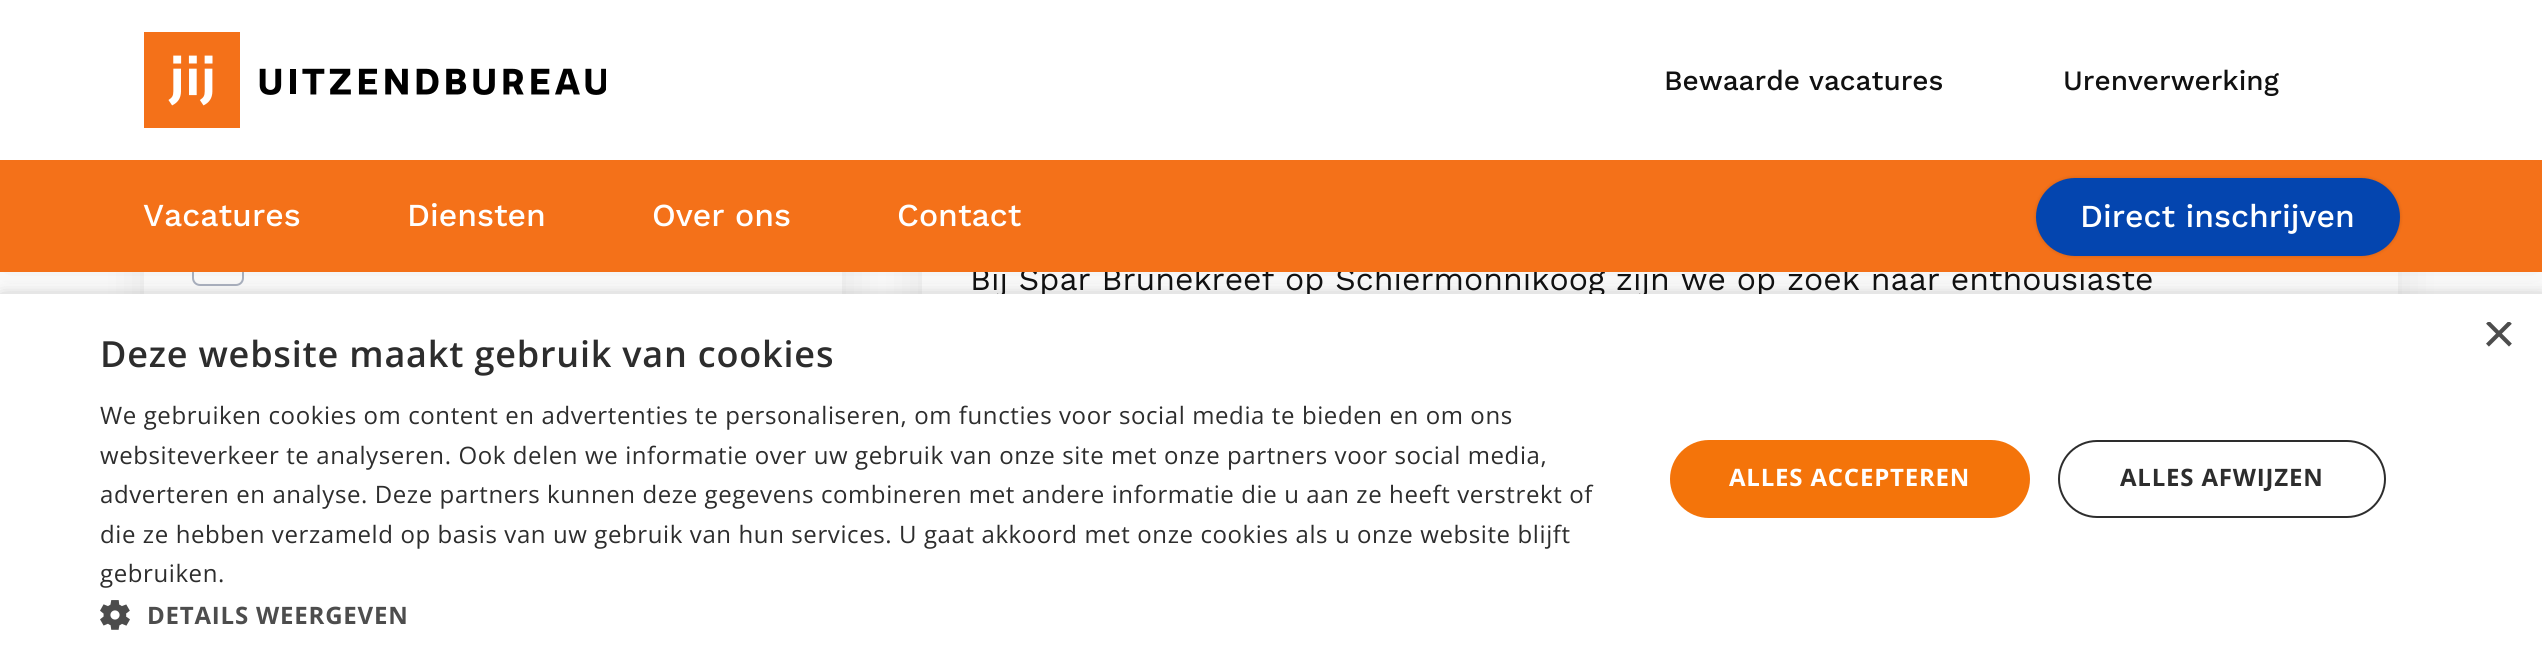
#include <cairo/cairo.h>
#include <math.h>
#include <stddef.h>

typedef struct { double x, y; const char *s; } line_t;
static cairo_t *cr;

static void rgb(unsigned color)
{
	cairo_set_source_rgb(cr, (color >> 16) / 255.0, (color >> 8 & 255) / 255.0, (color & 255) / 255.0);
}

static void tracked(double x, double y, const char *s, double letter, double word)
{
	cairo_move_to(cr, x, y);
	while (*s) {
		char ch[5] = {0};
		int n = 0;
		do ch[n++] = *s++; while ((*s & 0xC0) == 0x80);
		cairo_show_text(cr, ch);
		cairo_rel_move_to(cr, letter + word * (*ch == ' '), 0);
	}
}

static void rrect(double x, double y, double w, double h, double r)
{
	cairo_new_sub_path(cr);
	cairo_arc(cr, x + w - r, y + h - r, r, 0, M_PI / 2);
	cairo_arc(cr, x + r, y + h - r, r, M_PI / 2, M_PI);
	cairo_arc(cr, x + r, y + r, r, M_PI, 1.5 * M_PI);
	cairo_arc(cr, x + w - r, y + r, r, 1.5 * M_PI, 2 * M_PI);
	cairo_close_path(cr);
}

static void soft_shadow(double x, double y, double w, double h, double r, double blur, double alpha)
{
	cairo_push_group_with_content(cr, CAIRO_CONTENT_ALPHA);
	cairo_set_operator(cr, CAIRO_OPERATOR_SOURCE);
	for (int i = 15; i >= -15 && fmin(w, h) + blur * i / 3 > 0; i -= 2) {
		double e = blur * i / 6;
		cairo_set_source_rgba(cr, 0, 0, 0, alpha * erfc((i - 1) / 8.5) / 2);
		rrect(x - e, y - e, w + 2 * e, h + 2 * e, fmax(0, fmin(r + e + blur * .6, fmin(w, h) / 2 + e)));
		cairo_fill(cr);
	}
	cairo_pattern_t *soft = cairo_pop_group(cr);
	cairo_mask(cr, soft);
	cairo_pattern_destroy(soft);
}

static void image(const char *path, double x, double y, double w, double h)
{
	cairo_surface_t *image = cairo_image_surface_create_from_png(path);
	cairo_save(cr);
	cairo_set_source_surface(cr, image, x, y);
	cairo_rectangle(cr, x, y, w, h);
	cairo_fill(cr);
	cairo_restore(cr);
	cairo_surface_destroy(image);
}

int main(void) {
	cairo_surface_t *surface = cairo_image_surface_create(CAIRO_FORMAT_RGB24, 2542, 663);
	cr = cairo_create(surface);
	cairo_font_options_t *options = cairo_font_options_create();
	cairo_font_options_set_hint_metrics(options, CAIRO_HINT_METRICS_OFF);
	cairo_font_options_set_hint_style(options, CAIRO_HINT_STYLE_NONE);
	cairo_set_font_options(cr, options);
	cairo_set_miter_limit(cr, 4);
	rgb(0xffffff);
	cairo_paint(cr);
	cairo_save(cr);
	cairo_set_fill_rule(cr, CAIRO_FILL_RULE_EVEN_ODD);
	cairo_new_path(cr);
	cairo_move_to(cr, 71, 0);
	cairo_line_to(cr, 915, 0);
	cairo_line_to(cr, 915, 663);
	cairo_line_to(cr, 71, 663);
	cairo_close_path(cr);
	cairo_move_to(cr, 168, -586);
	cairo_line_to(cr, 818, -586);
	cairo_curve_to(cr, 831.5, -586, 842, -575.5, 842, -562);
	cairo_line_to(cr, 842, 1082);
	cairo_curve_to(cr, 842, 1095.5, 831.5, 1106, 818, 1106);
	cairo_line_to(cr, 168, 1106);
	cairo_curve_to(cr, 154.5, 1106, 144, 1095.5, 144, 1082);
	cairo_line_to(cr, 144, -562);
	cairo_curve_to(cr, 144, -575.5, 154.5, -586, 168, -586);
	cairo_close_path(cr);
	cairo_clip(cr);
	rgb(0x000000);
	soft_shadow(144, -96, 698, 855, 24, 24, 0.08);
	cairo_restore(cr);
	rrect(193, 235, 50, 50, 7);
	rgb(0xadb4c2);
	cairo_stroke(cr);
	rgb(0x000000);
	soft_shadow(0, 0, 2542, 272, 0, 24, 0.08);
	cairo_save(cr);
	cairo_set_fill_rule(cr, CAIRO_FILL_RULE_EVEN_ODD);
	cairo_new_path(cr);
	cairo_move_to(cr, 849, 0);
	cairo_line_to(cr, 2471, 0);
	cairo_line_to(cr, 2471, 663);
	cairo_line_to(cr, 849, 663);
	cairo_close_path(cr);
	cairo_move_to(cr, 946, -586);
	cairo_line_to(cr, 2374, -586);
	cairo_curve_to(cr, 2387.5, -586, 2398, -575.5, 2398, -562);
	cairo_line_to(cr, 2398, 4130);
	cairo_curve_to(cr, 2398, 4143.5, 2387.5, 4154, 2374, 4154);
	cairo_line_to(cr, 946, 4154);
	cairo_curve_to(cr, 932.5, 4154, 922, 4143.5, 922, 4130);
	cairo_line_to(cr, 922, -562);
	cairo_curve_to(cr, 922, -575.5, 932.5, -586, 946, -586);
	cairo_close_path(cr);
	cairo_clip(cr);
	soft_shadow(922, -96, 1476, 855, 24, 24, 0.08);
	cairo_restore(cr);
	rgb(0xffffff);
	cairo_rectangle(cr, 0, 0, 2542, 160);
	cairo_fill(cr);
	image("img/1.png", 144, 32, 462, 96);
	rgb(0x000000);
	soft_shadow(2, 298, 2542, 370, 0, 8, 0.35);
	cairo_select_font_face(cr, "Work Sans Medium", CAIRO_FONT_SLANT_NORMAL, CAIRO_FONT_WEIGHT_NORMAL);
	cairo_set_font_size(cr, 28);
	rgb(0x111111);
	cairo_move_to(cr, 1664, 90);
	cairo_show_text(cr, "Bewaarde vacatures");
	cairo_move_to(cr, 2063, 90);
	cairo_show_text(cr, "Urenverwerking");
	cairo_select_font_face(cr, "Work Sans", CAIRO_FONT_SLANT_NORMAL, CAIRO_FONT_WEIGHT_NORMAL);
	cairo_set_font_size(cr, 32);
	cairo_move_to(cr, 970, 290);
	cairo_show_text(cr, "Bij Spar Brunekreef op Schiermonnikoog zijn we op zoek naar enthousiaste");
	rgb(0xf47119);
	cairo_rectangle(cr, 0, 160, 2542, 112);
	cairo_fill(cr);
	cairo_select_font_face(cr, "Work Sans Medium", CAIRO_FONT_SLANT_NORMAL, CAIRO_FONT_WEIGHT_NORMAL);
	rgb(0xffffff);
	{
		static const line_t items[] = {
			{897, 226, "Contact"},
			{652, 226, "Over ons"},
			{407, 226, "Diensten"},
			{143, 226, "Vacatures"},
		};
		for (size_t i = 0; i < sizeof items / sizeof *items; i++) {
			cairo_move_to(cr, items[i].x, items[i].y);
			cairo_show_text(cr, items[i].s);
		}
	}
	rgb(0x000000);
	soft_shadow(2036, 178, 364, 78, 39, 2, 0.15);
	rgb(0x0445af);
	rrect(2038, 180, 360, 74, 37);
	cairo_fill_preserve(cr);
	cairo_set_line_width(cr, 4);
	cairo_stroke(cr);
	rgb(0xffffff);
	cairo_move_to(cr, 2080, 227);
	cairo_show_text(cr, "Direct inschrijven");
	cairo_rectangle(cr, 0, 294, 2542, 369);
	cairo_fill(cr);
	cairo_save(cr);
	cairo_rectangle(cr, 2482, 322, 30, 30);
	cairo_clip(cr);
	cairo_select_font_face(cr, "Liberation Sans", CAIRO_FONT_SLANT_NORMAL, CAIRO_FONT_WEIGHT_NORMAL);
	cairo_set_font_size(cr, 58);
	rgb(0x4d4d4d);
	cairo_move_to(cr, 2482, 353);
	cairo_show_text(cr, "×");
	cairo_restore(cr);
	cairo_select_font_face(cr, "Open Sans SemiBold", CAIRO_FONT_SLANT_NORMAL, CAIRO_FONT_WEIGHT_NORMAL);
	cairo_set_font_size(cr, 36);
	rgb(0x2d2d2d);
	tracked(100, 367, "Deze website maakt gebruik van cookies", 0.8, 0);
	cairo_select_font_face(cr, "Open Sans", CAIRO_FONT_SLANT_NORMAL, CAIRO_FONT_WEIGHT_NORMAL);
	cairo_set_font_size(cr, 24);
	{
		static const line_t items[] = {
			{100, 424, "We gebruiken cookies om content en advertenties te personaliseren, om functies voor social media te bieden en om ons"},
			{100, 464, "websiteverkeer te analyseren. Ook delen we informatie over uw gebruik van onze site met onze partners voor social media,"},
			{100, 503, "adverteren en analyse. Deze partners kunnen deze gegevens combineren met andere informatie die u aan ze heeft verstrekt of"},
			{100, 543, "die ze hebben verzameld op basis van uw gebruik van hun services. U gaat akkoord met onze cookies als u onze website blijft"},
			{100, 582, "gebruiken."},
		};
		for (size_t i = 0; i < sizeof items / sizeof *items; i++) {
			tracked(items[i].x, items[i].y, items[i].s, 0.6, 0);
		}
	}
	image("img/2.png", 100, 600, 30, 30);
	cairo_select_font_face(cr, "Open Sans", CAIRO_FONT_SLANT_NORMAL, CAIRO_FONT_WEIGHT_BOLD);
	rgb(0x4d4d4d);
	tracked(147, 624, "DETAILS WEERGEVEN", 0.8, 0);
	rgb(0xf4740a);
	rrect(1670, 440, 360, 78, 39);
	cairo_fill(cr);
	rgb(0xffffff);
	tracked(1729, 486, "ALLES ACCEPTEREN", 0.8, 0);
	rrect(2059, 441, 326, 76, 38);
	rgb(0x2d2d2d);
	cairo_set_line_width(cr, 2);
	cairo_stroke(cr);
	tracked(2120, 486, "ALLES AFWIJZEN", 0.8, 0);
	cairo_surface_write_to_png(surface, "page.png");
	cairo_font_options_destroy(options);
	cairo_destroy(cr);
	cairo_surface_destroy(surface);
	return 0;
}
